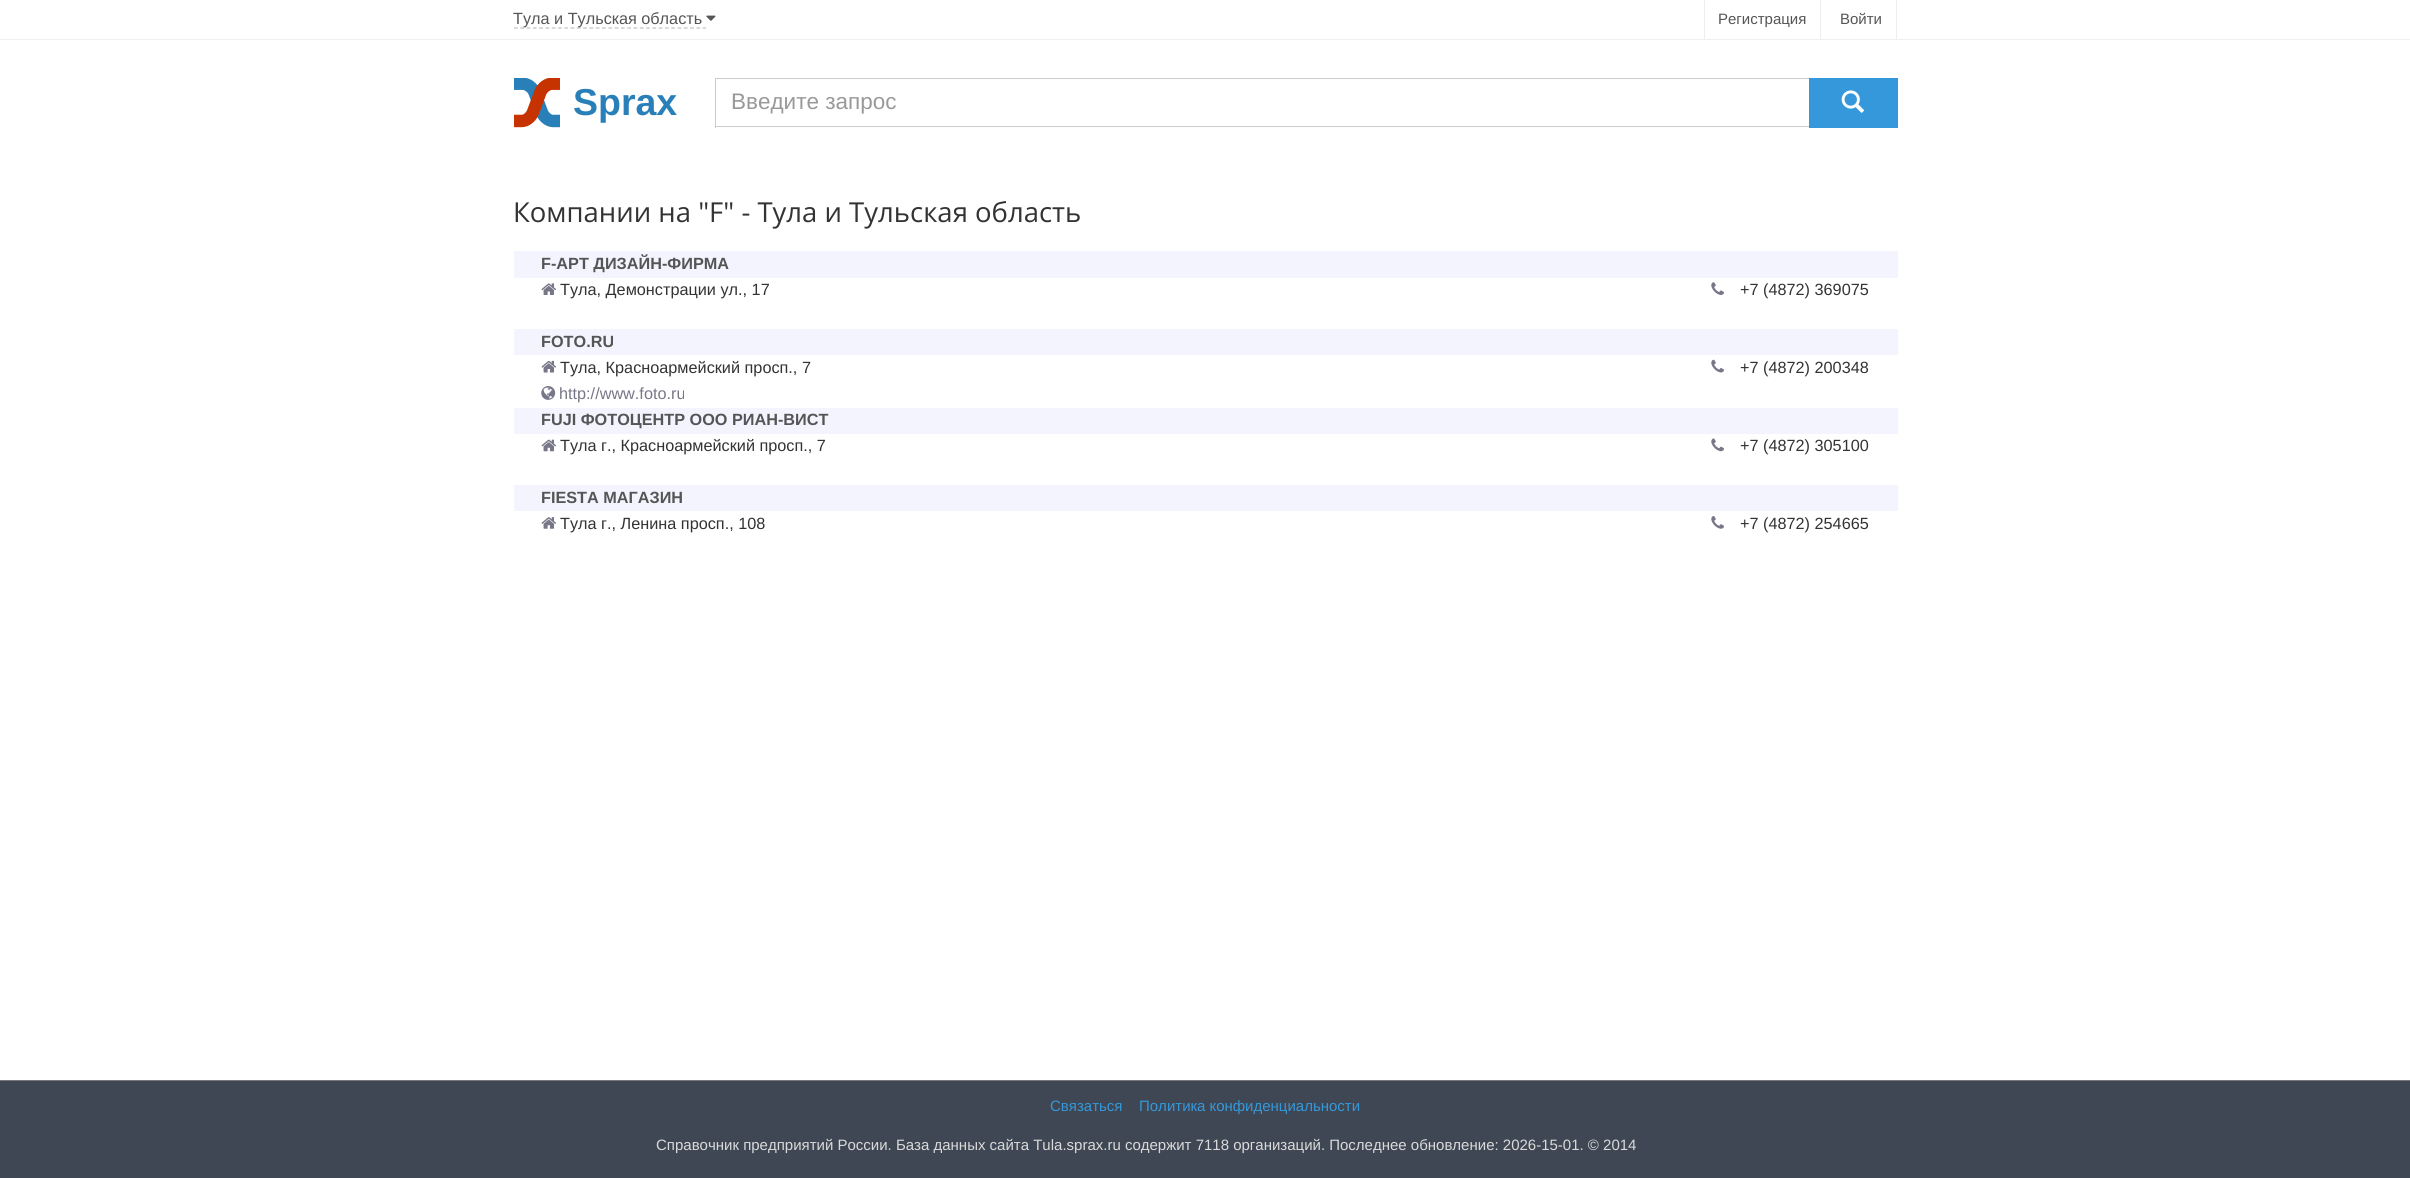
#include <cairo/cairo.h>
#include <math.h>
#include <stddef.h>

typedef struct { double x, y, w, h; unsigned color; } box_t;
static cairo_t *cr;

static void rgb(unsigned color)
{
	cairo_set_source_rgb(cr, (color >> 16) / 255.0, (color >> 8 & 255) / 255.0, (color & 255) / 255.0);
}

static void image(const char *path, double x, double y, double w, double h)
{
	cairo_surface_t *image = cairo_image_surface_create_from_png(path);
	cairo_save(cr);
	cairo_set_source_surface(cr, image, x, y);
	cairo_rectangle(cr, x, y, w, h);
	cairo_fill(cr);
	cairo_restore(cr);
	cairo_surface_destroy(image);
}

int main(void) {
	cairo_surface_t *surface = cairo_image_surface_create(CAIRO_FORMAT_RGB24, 2410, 1178);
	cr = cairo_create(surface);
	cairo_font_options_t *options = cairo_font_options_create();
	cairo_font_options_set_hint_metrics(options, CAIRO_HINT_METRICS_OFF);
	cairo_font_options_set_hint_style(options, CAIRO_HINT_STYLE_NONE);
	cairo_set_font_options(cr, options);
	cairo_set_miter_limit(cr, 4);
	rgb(0xffffff);
	cairo_paint(cr);
	rgb(0xf0f0f0);
	cairo_rectangle(cr, 0, 39, 2410, 1);
	cairo_fill(cr);
	cairo_new_path(cr);
	cairo_move_to(cr, 514, 28);
	cairo_line_to(cr, 706, 28);
	rgb(0xc0c0c0);
	cairo_set_line_width(cr, 1.2);
	cairo_set_dash(cr, (double[]){3.75, 2.54}, 2, 0);
	cairo_stroke(cr);
	image("img/1.png", 706, 15, 10, 6);
	{
		static const box_t items[] = {
			{1820, 0, 1, 39, 0xeeeeee},
			{1704, 0, 1, 39, 0xeeeeee},
			{1896, 0, 1, 39, 0xeeeeee},
		};
		for (size_t i = 0; i < sizeof items / sizeof *items; i++) {
			rgb(items[i].color);
			cairo_rectangle(cr, items[i].x, items[i].y, items[i].w, items[i].h);
			cairo_fill(cr);
		}
	}
	image("img/2.png", 514, 78, 46, 50);
	{
		static const box_t items[] = {
			{715, 78, 1094, 1, 0xcccccc},
			{715, 126, 1094, 1, 0xcccccc},
			{715, 78, 1, 50, 0xcccccc},
			{1809, 78, 89, 50, 0x3498db},
		};
		for (size_t i = 0; i < sizeof items / sizeof *items; i++) {
			rgb(items[i].color);
			cairo_rectangle(cr, items[i].x, items[i].y, items[i].w, items[i].h);
			cairo_fill(cr);
		}
	}
	image("img/3.png", 1841, 90, 24, 23);
	rgb(0xf4f4ff);
	cairo_rectangle(cr, 514, 251, 1384, 27);
	cairo_fill(cr);
	image("img/4.png", 541, 283, 15, 12);
	image("img/5.png", 1711, 282, 13, 13);
	cairo_rectangle(cr, 514, 329, 1384, 26);
	cairo_fill(cr);
	image("img/6.png", 541, 360, 15, 13);
	image("img/7.png", 1711, 359, 13, 14);
	image("img/8.png", 541, 386, 15, 14);
	cairo_rectangle(cr, 514, 408, 1384, 26);
	cairo_fill(cr);
	image("img/9.png", 541, 439, 15, 13);
	image("img/10.png", 1711, 438, 13, 14);
	cairo_rectangle(cr, 514, 485, 1384, 26);
	cairo_fill(cr);
	image("img/11.png", 541, 517, 15, 12);
	image("img/12.png", 1711, 516, 13, 13);
	rgb(0x3e4753);
	cairo_rectangle(cr, 0, 1081, 2410, 97);
	cairo_fill(cr);
	rgb(0x777777);
	cairo_rectangle(cr, 0, 1080, 2410, 1);
	cairo_fill(cr);
	cairo_select_font_face(cr, "Liberation Sans", CAIRO_FONT_SLANT_NORMAL, CAIRO_FONT_WEIGHT_NORMAL);
	cairo_set_font_size(cr, 16.25);
	rgb(0x555555);
	cairo_move_to(cr, 513, 24);
	cairo_show_text(cr, "Тула и Тульская область");
	cairo_set_font_size(cr, 15);
	cairo_move_to(cr, 1718, 24);
	cairo_show_text(cr, "Регистрация");
	cairo_move_to(cr, 1840, 24);
	cairo_show_text(cr, "Войти");
	cairo_select_font_face(cr, "Liberation Sans", CAIRO_FONT_SLANT_NORMAL, CAIRO_FONT_WEIGHT_BOLD);
	cairo_set_font_size(cr, 37.5);
	rgb(0x2980b9);
	cairo_move_to(cr, 573, 115);
	cairo_show_text(cr, "Sprax");
	cairo_select_font_face(cr, "Liberation Sans", CAIRO_FONT_SLANT_NORMAL, CAIRO_FONT_WEIGHT_NORMAL);
	cairo_set_font_size(cr, 22.5);
	rgb(0x999999);
	cairo_move_to(cr, 731, 109);
	cairo_show_text(cr, "Введите запрос");
	cairo_select_font_face(cr, "Open Sans", CAIRO_FONT_SLANT_NORMAL, CAIRO_FONT_WEIGHT_NORMAL);
	cairo_set_font_size(cr, 27.5);
	rgb(0x333333);
	cairo_move_to(cr, 513, 222);
	cairo_show_text(cr, "Компании на \"F\" - Тула и Тульская область");
	cairo_select_font_face(cr, "Liberation Sans", CAIRO_FONT_SLANT_NORMAL, CAIRO_FONT_WEIGHT_BOLD);
	cairo_set_font_size(cr, 16.25);
	rgb(0x555555);
	cairo_move_to(cr, 541, 269);
	cairo_show_text(cr, "F-АРТ ДИЗАЙН-ФИРМА");
	cairo_select_font_face(cr, "Liberation Sans", CAIRO_FONT_SLANT_NORMAL, CAIRO_FONT_WEIGHT_NORMAL);
	rgb(0x333333);
	cairo_move_to(cr, 560, 295);
	cairo_show_text(cr, "Тула, Демонстрации ул., 17");
	cairo_move_to(cr, 1740, 295);
	cairo_show_text(cr, "+7 (4872) 369075");
	cairo_select_font_face(cr, "Liberation Sans", CAIRO_FONT_SLANT_NORMAL, CAIRO_FONT_WEIGHT_BOLD);
	rgb(0x555555);
	cairo_move_to(cr, 541, 347);
	cairo_show_text(cr, "FOTO.RU");
	cairo_select_font_face(cr, "Liberation Sans", CAIRO_FONT_SLANT_NORMAL, CAIRO_FONT_WEIGHT_NORMAL);
	rgb(0x333333);
	cairo_move_to(cr, 560, 373);
	cairo_show_text(cr, "Тула, Красноармейский просп., 7");
	cairo_move_to(cr, 1740, 373);
	cairo_show_text(cr, "+7 (4872) 200348");
	rgb(0x777788);
	cairo_move_to(cr, 559, 399);
	cairo_show_text(cr, "http://www.foto.ru");
	cairo_select_font_face(cr, "Liberation Sans", CAIRO_FONT_SLANT_NORMAL, CAIRO_FONT_WEIGHT_BOLD);
	rgb(0x555555);
	cairo_move_to(cr, 541, 425);
	cairo_show_text(cr, "FUJI ФОТОЦЕНТР ООО РИАН-ВИСТ");
	cairo_select_font_face(cr, "Liberation Sans", CAIRO_FONT_SLANT_NORMAL, CAIRO_FONT_WEIGHT_NORMAL);
	rgb(0x333333);
	cairo_move_to(cr, 560, 451);
	cairo_show_text(cr, "Тула г., Красноармейский просп., 7");
	cairo_move_to(cr, 1740, 451);
	cairo_show_text(cr, "+7 (4872) 305100");
	cairo_select_font_face(cr, "Liberation Sans", CAIRO_FONT_SLANT_NORMAL, CAIRO_FONT_WEIGHT_BOLD);
	rgb(0x555555);
	cairo_move_to(cr, 541, 503);
	cairo_show_text(cr, "FIESTA МАГАЗИН");
	cairo_select_font_face(cr, "Liberation Sans", CAIRO_FONT_SLANT_NORMAL, CAIRO_FONT_WEIGHT_NORMAL);
	rgb(0x333333);
	cairo_move_to(cr, 560, 529);
	cairo_show_text(cr, "Тула г., Ленина просп., 108");
	cairo_move_to(cr, 1740, 529);
	cairo_show_text(cr, "+7 (4872) 254665");
	cairo_set_font_size(cr, 15);
	rgb(0x3498db);
	cairo_move_to(cr, 1050, 1111);
	cairo_show_text(cr, "Связаться");
	cairo_move_to(cr, 1139, 1111);
	cairo_show_text(cr, "Политика конфиденциальности");
	rgb(0xdadada);
	cairo_move_to(cr, 656, 1150);
	cairo_show_text(cr, "Справочник предприятий России. База данных сайта Tula.sprax.ru содержит 7118 организаций. Последнее обновление: 2026-15-01. © 2014");
	cairo_surface_write_to_png(surface, "page.png");
	cairo_font_options_destroy(options);
	cairo_destroy(cr);
	cairo_surface_destroy(surface);
	return 0;
}
